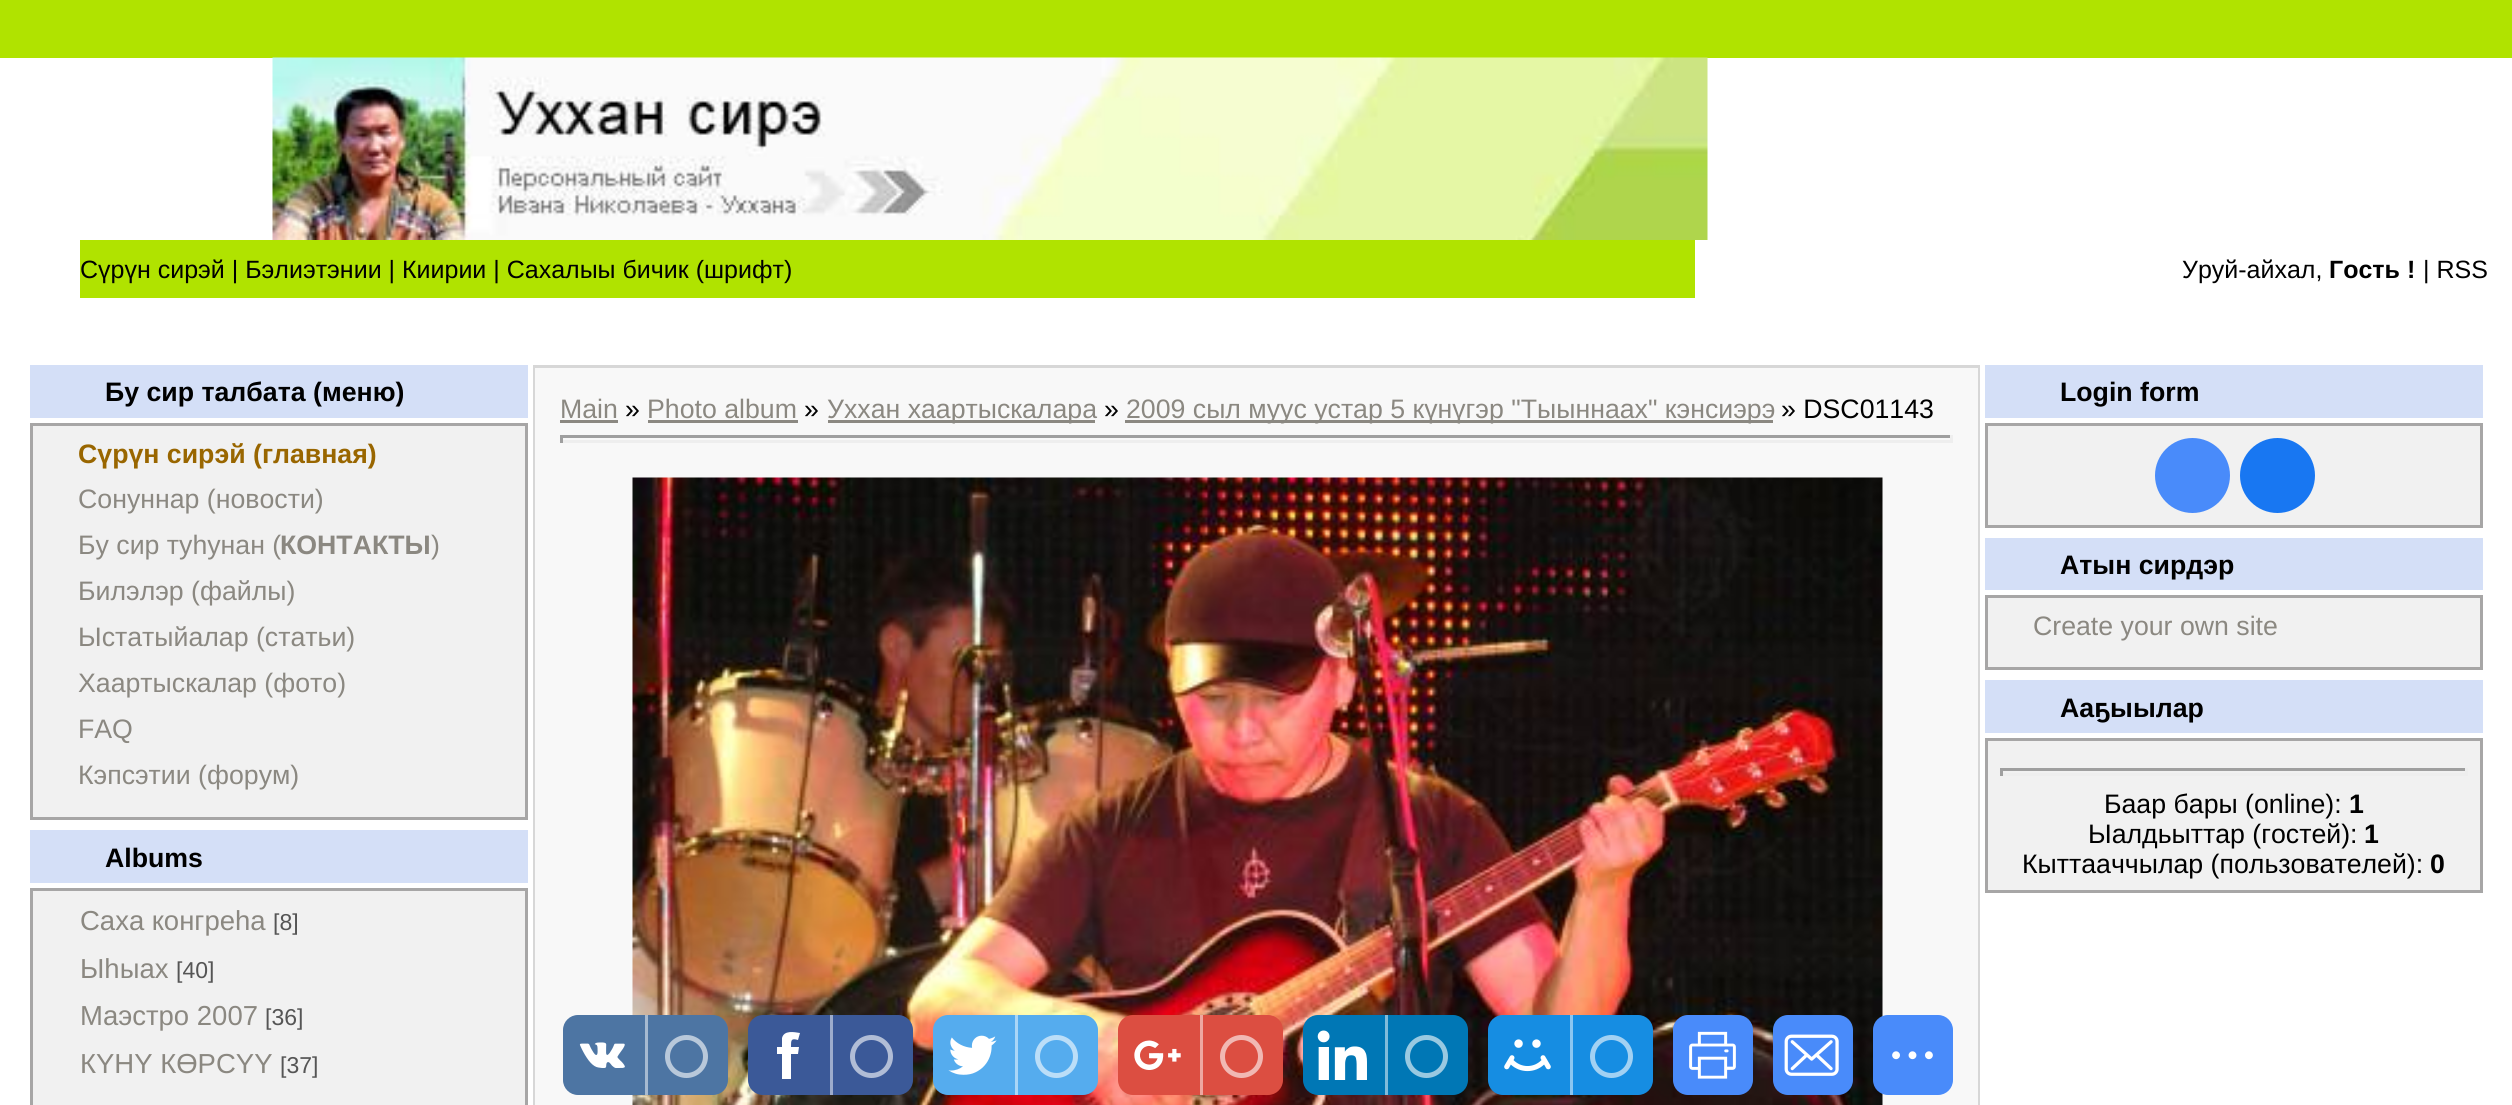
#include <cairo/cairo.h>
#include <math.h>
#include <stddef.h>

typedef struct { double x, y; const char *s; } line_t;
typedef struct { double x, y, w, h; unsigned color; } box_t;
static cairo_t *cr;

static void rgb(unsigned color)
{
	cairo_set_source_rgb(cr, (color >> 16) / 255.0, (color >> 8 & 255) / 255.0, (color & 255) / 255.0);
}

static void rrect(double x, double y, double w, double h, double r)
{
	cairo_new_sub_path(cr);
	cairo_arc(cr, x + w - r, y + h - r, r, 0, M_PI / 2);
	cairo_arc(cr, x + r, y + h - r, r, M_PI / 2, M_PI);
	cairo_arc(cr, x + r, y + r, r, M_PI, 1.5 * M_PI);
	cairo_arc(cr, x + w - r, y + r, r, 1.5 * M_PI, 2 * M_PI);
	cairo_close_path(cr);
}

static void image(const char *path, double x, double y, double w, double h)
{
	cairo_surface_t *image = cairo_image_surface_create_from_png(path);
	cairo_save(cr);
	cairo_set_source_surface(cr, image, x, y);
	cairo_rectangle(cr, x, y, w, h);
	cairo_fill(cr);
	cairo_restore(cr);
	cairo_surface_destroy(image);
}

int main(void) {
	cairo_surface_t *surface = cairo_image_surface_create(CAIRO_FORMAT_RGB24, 2512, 1105);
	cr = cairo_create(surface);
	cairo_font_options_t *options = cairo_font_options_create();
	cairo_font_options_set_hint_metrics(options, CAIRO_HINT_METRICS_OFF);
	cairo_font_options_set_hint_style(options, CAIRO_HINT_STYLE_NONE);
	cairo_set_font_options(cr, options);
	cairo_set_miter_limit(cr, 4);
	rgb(0xffffff);
	cairo_paint(cr);
	rgb(0xb0e300);
	cairo_rectangle(cr, 0, 0, 2512, 58);
	cairo_fill(cr);
	image("img/1.png", 272, 57, 1436, 183);
	cairo_rectangle(cr, 80, 240, 1615, 58);
	cairo_fill(cr);
	rgb(0xd4dff7);
	cairo_rectangle(cr, 30, 365, 498, 53);
	cairo_fill(cr);
	rgb(0xf1f1f1);
	cairo_rectangle(cr, 31.5, 424.5, 495, 394);
	cairo_fill_preserve(cr);
	rgb(0xa7a6a6);
	cairo_set_line_width(cr, 3);
	cairo_stroke(cr);
	rgb(0xd4dff7);
	cairo_rectangle(cr, 30, 830, 498, 53);
	cairo_fill(cr);
	rgb(0xf1f1f1);
	cairo_rectangle(cr, 31.5, 889.5, 495, 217);
	cairo_fill_preserve(cr);
	rgb(0xa7a6a6);
	cairo_stroke(cr);
	cairo_rectangle(cr, 534.5, 366.5, 1444, 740);
	rgb(0xd7d7d7);
	cairo_stroke(cr);
	{
		static const box_t items[] = {
			{535, 368, 1443, 737, 0xf8f8f8},
			{560, 420, 58, 3, 0x8b8881},
			{648, 420, 150, 3, 0x8b8881},
			{828, 420, 267, 3, 0x8b8881},
			{1125, 420, 648, 3, 0x8b8881},
			{560, 435, 1393, 3, 0x9f9f9f},
			{1950, 435, 3, 8, 0xeeeeee},
			{560, 440, 1393, 3, 0xeeeeee},
			{560, 435, 3, 8, 0x9f9f9f},
		};
		for (size_t i = 0; i < sizeof items / sizeof *items; i++) {
			rgb(items[i].color);
			cairo_rectangle(cr, items[i].x, items[i].y, items[i].w, items[i].h);
			cairo_fill(cr);
		}
	}
	image("img/2.png", 632, 477, 1251, 628);
	rgb(0xd4dff7);
	cairo_rectangle(cr, 1985, 365, 498, 53);
	cairo_fill(cr);
	rgb(0xf1f1f1);
	cairo_rectangle(cr, 1986.5, 424.5, 495, 102);
	cairo_fill_preserve(cr);
	rgb(0xa7a6a6);
	cairo_stroke(cr);
	rgb(0x498bfa);
	cairo_arc(cr, 2192.5, 475.5, 37.5, 0, 2 * M_PI);
	cairo_fill(cr);
	rgb(0x1877f2);
	cairo_arc(cr, 2277.5, 475.5, 37.5, 0, 2 * M_PI);
	cairo_fill(cr);
	rgb(0xd4dff7);
	cairo_rectangle(cr, 1985, 538, 498, 52);
	cairo_fill(cr);
	rgb(0xf1f1f1);
	cairo_rectangle(cr, 1986.5, 596.5, 495, 72);
	cairo_fill_preserve(cr);
	rgb(0xa7a6a6);
	cairo_stroke(cr);
	rgb(0xd4dff7);
	cairo_rectangle(cr, 1985, 680, 498, 53);
	cairo_fill(cr);
	rgb(0xf1f1f1);
	cairo_rectangle(cr, 1986.5, 739.5, 495, 152);
	cairo_fill_preserve(cr);
	rgb(0xa7a6a6);
	cairo_stroke(cr);
	{
		static const box_t items[] = {
			{2000, 768, 468, 3, 0x9f9f9f},
			{2465, 768, 3, 8, 0xeeeeee},
			{2000, 773, 468, 3, 0xeeeeee},
			{2000, 768, 3, 8, 0x9f9f9f},
		};
		for (size_t i = 0; i < sizeof items / sizeof *items; i++) {
			rgb(items[i].color);
			cairo_rectangle(cr, items[i].x, items[i].y, items[i].w, items[i].h);
			cairo_fill(cr);
		}
	}
	rgb(0x4d75a3);
	rrect(563, 1015, 165, 80, 15);
	cairo_fill(cr);
	image("img/3.png", 579, 1042, 46, 26);
	rgb(0xa6bad1);
	cairo_rectangle(cr, 645, 1015, 3, 80);
	cairo_fill(cr);
	cairo_arc(cr, 686.5, 1056.5, 19, 0, 2 * M_PI);
	rgb(0xb8c8da);
	cairo_set_line_width(cr, 5);
	cairo_stroke(cr);
	rgb(0x3b5998);
	rrect(748, 1015, 165, 80, 15);
	cairo_fill(cr);
	rgb(0xffffff);
	cairo_new_path(cr);
	cairo_move_to(cr, 777, 1047);
	cairo_line_to(cr, 782, 1047);
	cairo_line_to(cr, 782, 1038);
	cairo_curve_to(cr, 784, 1030, 794, 1032, 800, 1033);
	cairo_line_to(cr, 798, 1040);
	cairo_curve_to(cr, 791, 1038, 791, 1040, 791, 1047);
	cairo_line_to(cr, 799, 1047);
	cairo_line_to(cr, 798, 1054);
	cairo_line_to(cr, 791, 1054);
	cairo_line_to(cr, 791, 1079);
	cairo_line_to(cr, 782, 1079);
	cairo_line_to(cr, 782, 1054);
	cairo_line_to(cr, 777, 1054);
	cairo_close_path(cr);
	cairo_fill(cr);
	rgb(0x9daccc);
	cairo_rectangle(cr, 830, 1015, 3, 80);
	cairo_fill(cr);
	cairo_arc(cr, 871.5, 1056.5, 19, 0, 2 * M_PI);
	rgb(0xb1bdd6);
	cairo_stroke(cr);
	rgb(0x55acee);
	rrect(933, 1015, 165, 80, 15);
	cairo_fill(cr);
	image("img/4.png", 948, 1035, 49, 40);
	rgb(0xaad6f7);
	cairo_rectangle(cr, 1015, 1015, 3, 80);
	cairo_fill(cr);
	cairo_arc(cr, 1056.5, 1056.5, 19, 0, 2 * M_PI);
	rgb(0xbbdef8);
	cairo_stroke(cr);
	rgb(0xdc4e41);
	rrect(1118, 1015, 165, 80, 15);
	cairo_fill(cr);
	image("img/5.png", 1134, 1040, 47, 30);
	rgb(0xeea7a0);
	cairo_rectangle(cr, 1200, 1015, 3, 80);
	cairo_fill(cr);
	cairo_arc(cr, 1241.5, 1056.5, 19, 0, 2 * M_PI);
	rgb(0xf1b8b3);
	cairo_stroke(cr);
	rgb(0x0077b5);
	rrect(1303, 1015, 165, 80, 15);
	cairo_fill(cr);
	image("img/6.png", 1317, 1030, 50, 50);
	rgb(0x80bbda);
	cairo_rectangle(cr, 1385, 1015, 3, 80);
	cairo_fill(cr);
	cairo_arc(cr, 1426.5, 1056.5, 19, 0, 2 * M_PI);
	rgb(0x99c9e1);
	cairo_stroke(cr);
	rgb(0x168de2);
	rrect(1488, 1015, 165, 80, 15);
	cairo_fill(cr);
	image("img/7.png", 1504, 1039, 47, 33);
	rgb(0x8bc6f1);
	cairo_rectangle(cr, 1570, 1015, 3, 80);
	cairo_fill(cr);
	cairo_arc(cr, 1611.5, 1056.5, 19, 0, 2 * M_PI);
	rgb(0xa2d1f3);
	cairo_stroke(cr);
	rgb(0x498bfa);
	rrect(1673, 1015, 80, 80, 15);
	cairo_fill(cr);
	image("img/8.png", 1689, 1031, 47, 48);
	rrect(1773, 1015, 80, 80, 15);
	cairo_fill(cr);
	image("img/9.png", 1784, 1034, 55, 42);
	rrect(1873, 1015, 80, 80, 15);
	cairo_fill(cr);
	image("img/10.png", 1892, 1051, 41, 9);
	cairo_select_font_face(cr, "Liberation Sans", CAIRO_FONT_SLANT_NORMAL, CAIRO_FONT_WEIGHT_NORMAL);
	cairo_set_font_size(cr, 25);
	rgb(0x000000);
	cairo_move_to(cr, 80, 278);
	cairo_show_text(cr, "Сүрүн сирэй | Бэлиэтэнии | Киирии | Сахалыы бичик (шрифт)");
	cairo_move_to(cr, 2182, 278);
	cairo_show_text(cr, "Уруй-айхал,");
	cairo_select_font_face(cr, "Liberation Sans", CAIRO_FONT_SLANT_NORMAL, CAIRO_FONT_WEIGHT_BOLD);
	cairo_move_to(cr, 2329, 278);
	cairo_show_text(cr, "Гость !");
	cairo_select_font_face(cr, "Liberation Sans", CAIRO_FONT_SLANT_NORMAL, CAIRO_FONT_WEIGHT_NORMAL);
	cairo_move_to(cr, 2423, 278);
	cairo_show_text(cr, "| RSS");
	cairo_select_font_face(cr, "Liberation Sans", CAIRO_FONT_SLANT_NORMAL, CAIRO_FONT_WEIGHT_BOLD);
	cairo_set_font_size(cr, 26.7);
	cairo_move_to(cr, 105, 401);
	cairo_show_text(cr, "Бу сир талбата (меню)");
	rgb(0x996600);
	cairo_move_to(cr, 78, 463);
	cairo_show_text(cr, "Сүрүн сирэй (главная)");
	cairo_select_font_face(cr, "Liberation Sans", CAIRO_FONT_SLANT_NORMAL, CAIRO_FONT_WEIGHT_NORMAL);
	rgb(0x8b8881);
	cairo_move_to(cr, 78, 508);
	cairo_show_text(cr, "Сонуннар (новости)");
	cairo_move_to(cr, 78, 554);
	cairo_show_text(cr, "Бу сир туһунан (");
	cairo_select_font_face(cr, "Liberation Sans", CAIRO_FONT_SLANT_NORMAL, CAIRO_FONT_WEIGHT_BOLD);
	cairo_move_to(cr, 280, 554);
	cairo_show_text(cr, "КОНТАКТЫ");
	cairo_select_font_face(cr, "Liberation Sans", CAIRO_FONT_SLANT_NORMAL, CAIRO_FONT_WEIGHT_NORMAL);
	{
		static const line_t items[] = {
			{431, 554, ")"},
			{78, 600, "Билэлэр (файлы)"},
			{78, 646, "Ыстатыйалар (статьи)"},
			{78, 692, "Хаартыскалар (фото)"},
			{78, 738, "FAQ"},
			{78, 784, "Кэпсэтии (форум)"},
		};
		for (size_t i = 0; i < sizeof items / sizeof *items; i++) {
			cairo_move_to(cr, items[i].x, items[i].y);
			cairo_show_text(cr, items[i].s);
		}
	}
	cairo_select_font_face(cr, "Liberation Sans", CAIRO_FONT_SLANT_NORMAL, CAIRO_FONT_WEIGHT_BOLD);
	rgb(0x000000);
	cairo_move_to(cr, 105, 867);
	cairo_show_text(cr, "Albums");
	cairo_select_font_face(cr, "Liberation Sans", CAIRO_FONT_SLANT_NORMAL, CAIRO_FONT_WEIGHT_NORMAL);
	cairo_set_font_size(cr, 27.5);
	rgb(0x8b8881);
	cairo_move_to(cr, 80, 930);
	cairo_show_text(cr, "Саха конгреһа");
	cairo_set_font_size(cr, 23);
	rgb(0x555555);
	cairo_move_to(cr, 273, 930);
	cairo_show_text(cr, "[8]");
	cairo_set_font_size(cr, 27.5);
	rgb(0x8b8881);
	cairo_move_to(cr, 80, 978);
	cairo_show_text(cr, "Ыһыах");
	cairo_set_font_size(cr, 23);
	rgb(0x555555);
	cairo_move_to(cr, 176, 978);
	cairo_show_text(cr, "[40]");
	cairo_set_font_size(cr, 27.5);
	rgb(0x8b8881);
	cairo_move_to(cr, 80, 1025);
	cairo_show_text(cr, "Маэстро 2007");
	cairo_set_font_size(cr, 23);
	rgb(0x555555);
	cairo_move_to(cr, 265, 1025);
	cairo_show_text(cr, "[36]");
	cairo_set_font_size(cr, 27.5);
	rgb(0x8b8881);
	cairo_move_to(cr, 80, 1073);
	cairo_show_text(cr, "КYНY КӨРСYY");
	cairo_set_font_size(cr, 23);
	rgb(0x555555);
	cairo_move_to(cr, 280, 1073);
	cairo_show_text(cr, "[37]");
	cairo_set_font_size(cr, 26.7);
	rgb(0x8b8881);
	cairo_move_to(cr, 560, 418);
	cairo_show_text(cr, "Main");
	rgb(0x000000);
	cairo_move_to(cr, 625, 418);
	cairo_show_text(cr, "»");
	rgb(0x8b8881);
	cairo_move_to(cr, 647, 418);
	cairo_show_text(cr, "Photo album");
	rgb(0x000000);
	cairo_move_to(cr, 804, 418);
	cairo_show_text(cr, "»");
	rgb(0x8b8881);
	cairo_move_to(cr, 827, 418);
	cairo_show_text(cr, "Уххан хаартыскалара");
	rgb(0x000000);
	cairo_move_to(cr, 1104, 418);
	cairo_show_text(cr, "»");
	rgb(0x8b8881);
	cairo_move_to(cr, 1126, 418);
	cairo_show_text(cr, "2009 сыл муус устар 5 күнүгэр \"Тыыннаах\" кэнсиэрэ");
	rgb(0x000000);
	cairo_move_to(cr, 1781, 418);
	cairo_show_text(cr, "» DSC01143");
	cairo_select_font_face(cr, "Liberation Sans", CAIRO_FONT_SLANT_NORMAL, CAIRO_FONT_WEIGHT_BOLD);
	cairo_move_to(cr, 2060, 401);
	cairo_show_text(cr, "Login form");
	cairo_move_to(cr, 2060, 574);
	cairo_show_text(cr, "Атын сирдэр");
	cairo_select_font_face(cr, "Liberation Sans", CAIRO_FONT_SLANT_NORMAL, CAIRO_FONT_WEIGHT_NORMAL);
	rgb(0x8b8881);
	cairo_move_to(cr, 2033, 635);
	cairo_show_text(cr, "Create your own site");
	cairo_select_font_face(cr, "Liberation Sans", CAIRO_FONT_SLANT_NORMAL, CAIRO_FONT_WEIGHT_BOLD);
	rgb(0x000000);
	cairo_move_to(cr, 2060, 717);
	cairo_show_text(cr, "Ааҕыылар");
	cairo_select_font_face(cr, "Liberation Sans", CAIRO_FONT_SLANT_NORMAL, CAIRO_FONT_WEIGHT_NORMAL);
	cairo_move_to(cr, 2104, 813);
	cairo_show_text(cr, "Баар бары (online):");
	cairo_select_font_face(cr, "Liberation Sans", CAIRO_FONT_SLANT_NORMAL, CAIRO_FONT_WEIGHT_BOLD);
	cairo_move_to(cr, 2349, 813);
	cairo_show_text(cr, "1");
	cairo_select_font_face(cr, "Liberation Sans", CAIRO_FONT_SLANT_NORMAL, CAIRO_FONT_WEIGHT_NORMAL);
	cairo_move_to(cr, 2088, 843);
	cairo_show_text(cr, "Ыалдьыттар (гостей):");
	cairo_select_font_face(cr, "Liberation Sans", CAIRO_FONT_SLANT_NORMAL, CAIRO_FONT_WEIGHT_BOLD);
	cairo_move_to(cr, 2364, 843);
	cairo_show_text(cr, "1");
	cairo_select_font_face(cr, "Liberation Sans", CAIRO_FONT_SLANT_NORMAL, CAIRO_FONT_WEIGHT_NORMAL);
	cairo_move_to(cr, 2022, 873);
	cairo_show_text(cr, "Кыттааччылар (пользователей):");
	cairo_select_font_face(cr, "Liberation Sans", CAIRO_FONT_SLANT_NORMAL, CAIRO_FONT_WEIGHT_BOLD);
	cairo_move_to(cr, 2430, 873);
	cairo_show_text(cr, "0");
	cairo_surface_write_to_png(surface, "page.png");
	cairo_font_options_destroy(options);
	cairo_destroy(cr);
	cairo_surface_destroy(surface);
	return 0;
}
